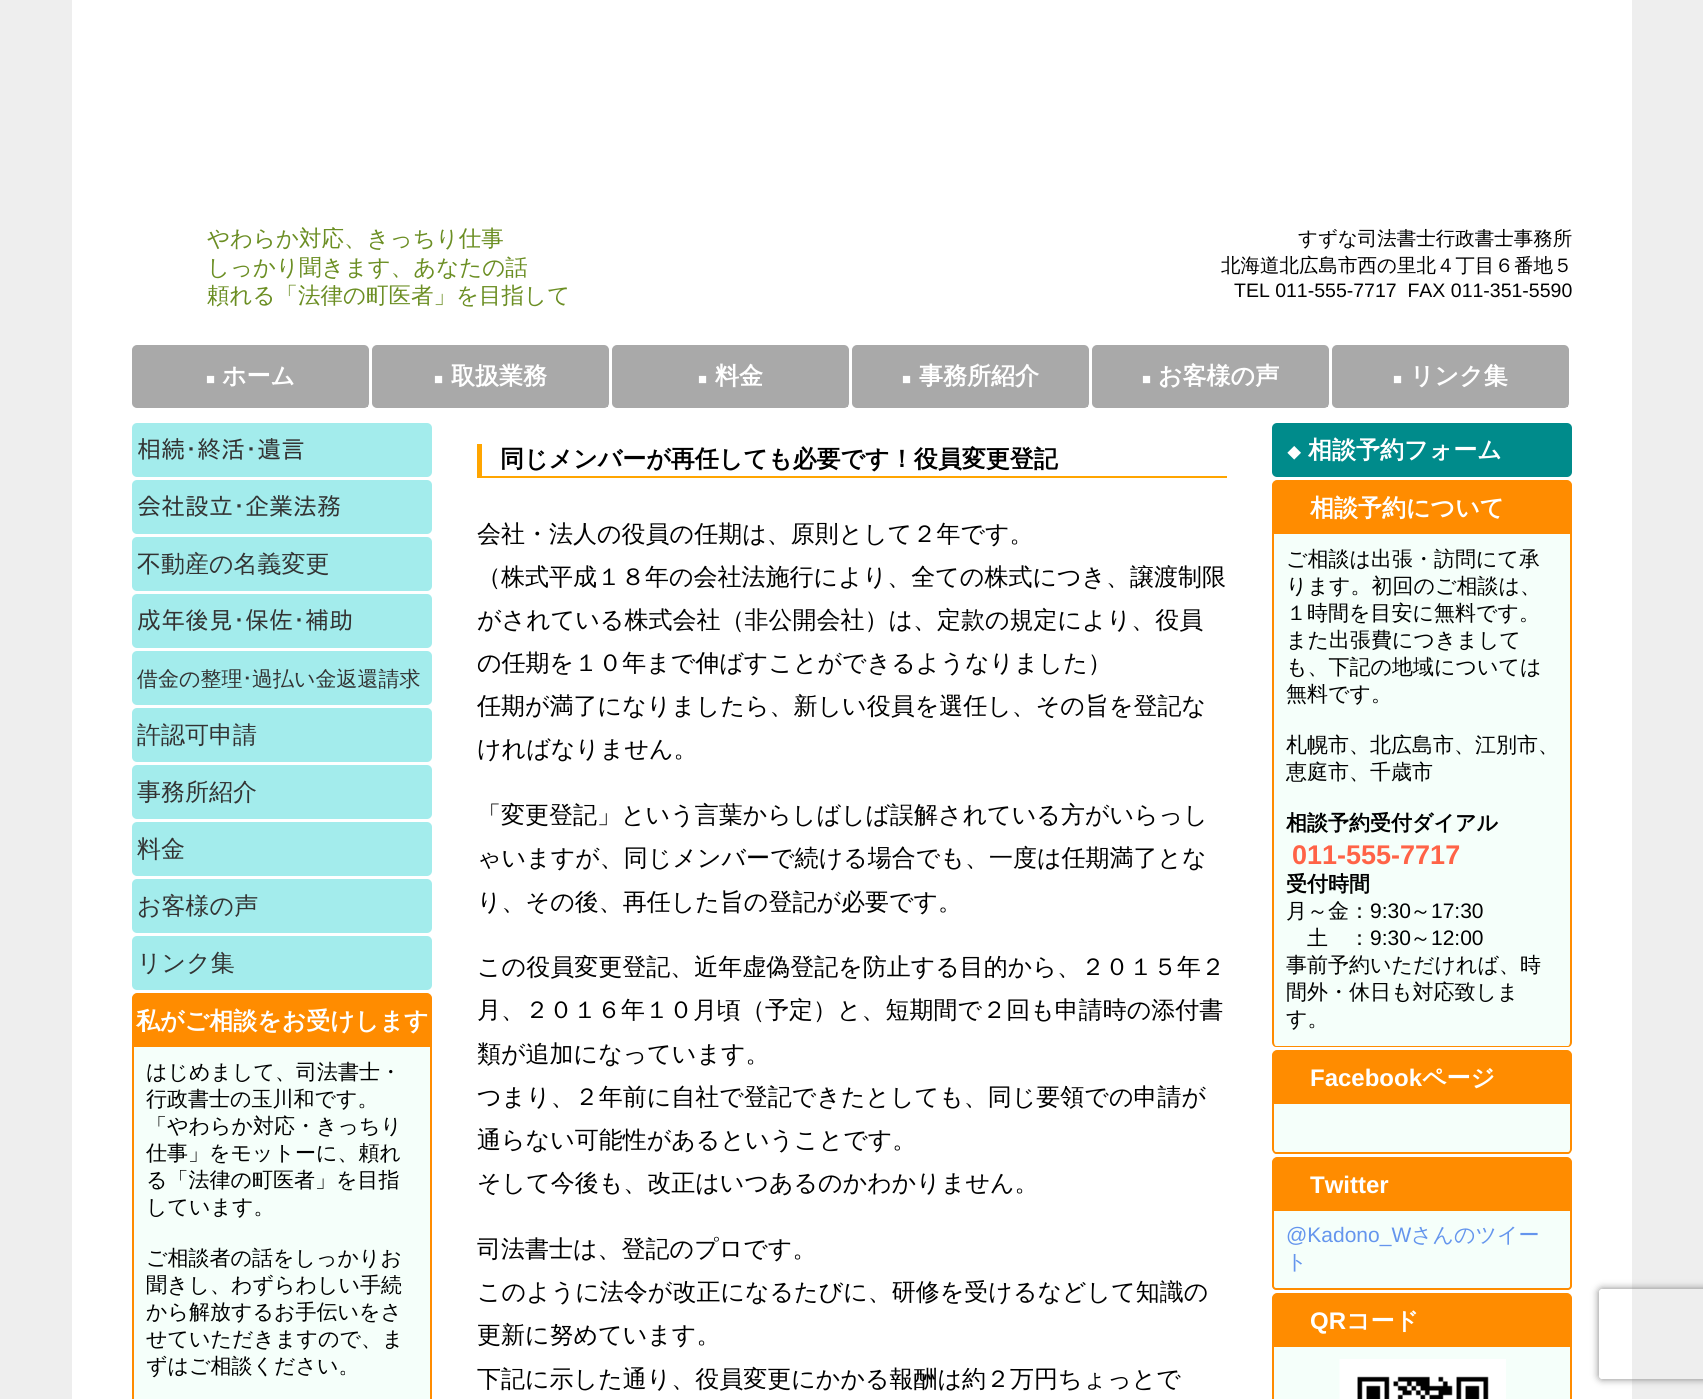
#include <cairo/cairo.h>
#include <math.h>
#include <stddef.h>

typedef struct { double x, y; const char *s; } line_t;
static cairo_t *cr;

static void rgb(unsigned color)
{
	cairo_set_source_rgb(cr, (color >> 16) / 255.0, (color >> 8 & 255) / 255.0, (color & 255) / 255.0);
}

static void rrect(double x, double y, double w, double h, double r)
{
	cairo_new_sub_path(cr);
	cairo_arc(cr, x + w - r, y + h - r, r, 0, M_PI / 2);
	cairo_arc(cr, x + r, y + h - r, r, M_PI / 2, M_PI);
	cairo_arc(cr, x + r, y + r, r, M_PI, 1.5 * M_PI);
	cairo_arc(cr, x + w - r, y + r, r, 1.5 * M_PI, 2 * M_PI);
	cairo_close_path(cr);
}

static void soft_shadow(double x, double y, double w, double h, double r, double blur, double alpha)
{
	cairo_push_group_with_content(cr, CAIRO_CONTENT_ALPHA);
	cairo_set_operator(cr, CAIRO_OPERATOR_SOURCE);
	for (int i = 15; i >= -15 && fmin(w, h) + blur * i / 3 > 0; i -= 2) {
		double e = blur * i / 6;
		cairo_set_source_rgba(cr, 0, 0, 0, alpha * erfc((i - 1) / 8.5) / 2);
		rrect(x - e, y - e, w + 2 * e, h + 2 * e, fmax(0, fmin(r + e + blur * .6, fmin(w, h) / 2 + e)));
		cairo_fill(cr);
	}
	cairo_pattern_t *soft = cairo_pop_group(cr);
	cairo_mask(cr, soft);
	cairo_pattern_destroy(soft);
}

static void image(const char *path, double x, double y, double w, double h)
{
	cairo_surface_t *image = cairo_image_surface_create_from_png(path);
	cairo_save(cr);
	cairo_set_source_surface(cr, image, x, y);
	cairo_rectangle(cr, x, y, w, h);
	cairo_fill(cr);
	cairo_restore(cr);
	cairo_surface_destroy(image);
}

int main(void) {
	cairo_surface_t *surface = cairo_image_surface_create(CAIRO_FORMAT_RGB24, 1703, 1399);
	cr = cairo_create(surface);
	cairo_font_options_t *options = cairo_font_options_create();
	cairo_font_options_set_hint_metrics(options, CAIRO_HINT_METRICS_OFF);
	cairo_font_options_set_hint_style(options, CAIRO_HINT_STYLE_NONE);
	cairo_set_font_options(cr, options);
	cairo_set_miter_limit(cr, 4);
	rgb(0xeeeeee);
	cairo_paint(cr);
	rgb(0xffffff);
	cairo_rectangle(cr, 72, 0, 1560, 1399);
	cairo_fill(cr);
	rrect(133, 346, 235, 61, 4);
	rgb(0xa9a9a9);
	cairo_stroke(cr);
	cairo_rectangle(cr, 134, 347, 234, 60);
	cairo_fill(cr);
	rrect(373, 346, 235, 61, 4);
	cairo_stroke(cr);
	cairo_rectangle(cr, 374, 347, 234, 60);
	cairo_fill(cr);
	rrect(613, 346, 235, 61, 4);
	cairo_stroke(cr);
	cairo_rectangle(cr, 614, 347, 234, 60);
	cairo_fill(cr);
	rrect(853, 346, 235, 61, 4);
	cairo_stroke(cr);
	cairo_rectangle(cr, 854, 347, 234, 60);
	cairo_fill(cr);
	rrect(1093, 346, 235, 61, 4);
	cairo_stroke(cr);
	cairo_rectangle(cr, 1094, 347, 234, 60);
	cairo_fill(cr);
	rrect(1333, 346, 235, 61, 4);
	cairo_stroke(cr);
	cairo_rectangle(cr, 1334, 347, 234, 60);
	cairo_fill(cr);
	rgb(0xa3ecec);
	rrect(132, 423, 300, 54, 5);
	cairo_fill(cr);
	rrect(132, 480, 300, 54, 5);
	cairo_fill(cr);
	rrect(132, 537, 300, 54, 5);
	cairo_fill(cr);
	rrect(132, 594, 300, 54, 5);
	cairo_fill(cr);
	rrect(132, 651, 300, 54, 5);
	cairo_fill(cr);
	rrect(132, 708, 300, 54, 5);
	cairo_fill(cr);
	rrect(132, 765, 300, 54, 5);
	cairo_fill(cr);
	rrect(132, 822, 300, 54, 5);
	cairo_fill(cr);
	rrect(132, 879, 300, 54, 5);
	cairo_fill(cr);
	rrect(132, 936, 300, 54, 5);
	cairo_fill(cr);
	rgb(0xff8c00);
	cairo_new_path(cr);
	cairo_move_to(cr, 137, 994);
	cairo_line_to(cr, 427, 994);
	cairo_curve_to(cr, 429, 994, 431, 996, 431, 998);
	cairo_line_to(cr, 431, 1046);
	cairo_line_to(cr, 133, 1046);
	cairo_line_to(cr, 133, 998);
	cairo_curve_to(cr, 133, 996, 135, 994, 137, 994);
	cairo_close_path(cr);
	cairo_fill_preserve(cr);
	cairo_stroke(cr);
	rgb(0xf5fffa);
	cairo_rectangle(cr, 134, 1047, 296, 352);
	cairo_fill(cr);
	rgb(0xff8c00);
	cairo_set_fill_rule(cr, CAIRO_FILL_RULE_EVEN_ODD);
	cairo_new_path(cr);
	cairo_move_to(cr, 132, 1047);
	cairo_line_to(cr, 432, 1047);
	cairo_line_to(cr, 432, 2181);
	cairo_curve_to(cr, 432, 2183, 430, 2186, 428, 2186);
	cairo_line_to(cr, 136, 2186);
	cairo_curve_to(cr, 134, 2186, 132, 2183, 132, 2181);
	cairo_close_path(cr);
	cairo_move_to(cr, 134, 1047);
	cairo_line_to(cr, 430, 1047);
	cairo_line_to(cr, 430, 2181);
	cairo_curve_to(cr, 430, 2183, 429, 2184, 428, 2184);
	cairo_line_to(cr, 136, 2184);
	cairo_curve_to(cr, 135, 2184, 134, 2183, 134, 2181);
	cairo_close_path(cr);
	cairo_fill(cr);
	rgb(0xffa500);
	cairo_rectangle(cr, 477, 476, 750, 2);
	cairo_fill(cr);
	cairo_rectangle(cr, 477, 444, 5, 33);
	cairo_fill(cr);
	rgb(0x008b8b);
	rrect(1272, 423, 300, 54, 5);
	cairo_fill(cr);
	rgb(0xff8c00);
	cairo_new_path(cr);
	cairo_move_to(cr, 1277, 481);
	cairo_line_to(cr, 1567, 481);
	cairo_curve_to(cr, 1569, 481, 1571, 483, 1571, 485);
	cairo_line_to(cr, 1571, 533);
	cairo_line_to(cr, 1273, 533);
	cairo_line_to(cr, 1273, 485);
	cairo_curve_to(cr, 1273, 483, 1275, 481, 1277, 481);
	cairo_close_path(cr);
	cairo_fill_preserve(cr);
	cairo_stroke(cr);
	rgb(0xf5fffa);
	cairo_new_path(cr);
	cairo_move_to(cr, 1272, 534);
	cairo_line_to(cr, 1572, 534);
	cairo_line_to(cr, 1572, 1042);
	cairo_curve_to(cr, 1572, 1045, 1570, 1047, 1567, 1047);
	cairo_line_to(cr, 1277, 1047);
	cairo_curve_to(cr, 1274, 1047, 1272, 1045, 1272, 1042);
	cairo_close_path(cr);
	cairo_fill(cr);
	rgb(0xff8c00);
	cairo_new_path(cr);
	cairo_move_to(cr, 1272, 534);
	cairo_line_to(cr, 1572, 534);
	cairo_line_to(cr, 1572, 1042);
	cairo_curve_to(cr, 1572, 1045, 1570, 1047, 1568, 1047);
	cairo_line_to(cr, 1276, 1047);
	cairo_curve_to(cr, 1274, 1047, 1272, 1045, 1272, 1042);
	cairo_close_path(cr);
	cairo_move_to(cr, 1274, 534);
	cairo_line_to(cr, 1570, 534);
	cairo_line_to(cr, 1570, 1042);
	cairo_curve_to(cr, 1570, 1044, 1569, 1046, 1568, 1046);
	cairo_line_to(cr, 1276, 1046);
	cairo_curve_to(cr, 1275, 1046, 1274, 1044, 1274, 1042);
	cairo_close_path(cr);
	cairo_fill(cr);
	cairo_new_path(cr);
	cairo_move_to(cr, 1277, 1051);
	cairo_line_to(cr, 1567, 1051);
	cairo_curve_to(cr, 1569, 1051, 1571, 1053, 1571, 1055);
	cairo_line_to(cr, 1571, 1103);
	cairo_line_to(cr, 1273, 1103);
	cairo_line_to(cr, 1273, 1055);
	cairo_curve_to(cr, 1273, 1053, 1275, 1051, 1277, 1051);
	cairo_close_path(cr);
	cairo_fill_preserve(cr);
	cairo_stroke(cr);
	rgb(0xf5fffa);
	cairo_new_path(cr);
	cairo_move_to(cr, 1272, 1104);
	cairo_line_to(cr, 1572, 1104);
	cairo_line_to(cr, 1572, 1149);
	cairo_curve_to(cr, 1572, 1152, 1570, 1154, 1567, 1154);
	cairo_line_to(cr, 1277, 1154);
	cairo_curve_to(cr, 1274, 1154, 1272, 1152, 1272, 1149);
	cairo_close_path(cr);
	cairo_fill(cr);
	rgb(0xff8c00);
	cairo_new_path(cr);
	cairo_move_to(cr, 1272, 1104);
	cairo_line_to(cr, 1572, 1104);
	cairo_line_to(cr, 1572, 1149);
	cairo_curve_to(cr, 1572, 1151, 1570, 1154, 1568, 1154);
	cairo_line_to(cr, 1276, 1154);
	cairo_curve_to(cr, 1274, 1154, 1272, 1151, 1272, 1149);
	cairo_close_path(cr);
	cairo_move_to(cr, 1274, 1104);
	cairo_line_to(cr, 1570, 1104);
	cairo_line_to(cr, 1570, 1149);
	cairo_curve_to(cr, 1570, 1151, 1569, 1152, 1568, 1152);
	cairo_line_to(cr, 1276, 1152);
	cairo_curve_to(cr, 1275, 1152, 1274, 1151, 1274, 1149);
	cairo_close_path(cr);
	cairo_fill(cr);
	cairo_new_path(cr);
	cairo_move_to(cr, 1277, 1158);
	cairo_line_to(cr, 1567, 1158);
	cairo_curve_to(cr, 1569, 1158, 1571, 1160, 1571, 1162);
	cairo_line_to(cr, 1571, 1210);
	cairo_line_to(cr, 1273, 1210);
	cairo_line_to(cr, 1273, 1162);
	cairo_curve_to(cr, 1273, 1160, 1275, 1158, 1277, 1158);
	cairo_close_path(cr);
	cairo_fill_preserve(cr);
	cairo_stroke(cr);
	rgb(0xf5fffa);
	cairo_new_path(cr);
	cairo_move_to(cr, 1272, 1211);
	cairo_line_to(cr, 1572, 1211);
	cairo_line_to(cr, 1572, 1285);
	cairo_curve_to(cr, 1572, 1288, 1570, 1290, 1567, 1290);
	cairo_line_to(cr, 1277, 1290);
	cairo_curve_to(cr, 1274, 1290, 1272, 1288, 1272, 1285);
	cairo_close_path(cr);
	cairo_fill(cr);
	rgb(0xff8c00);
	cairo_new_path(cr);
	cairo_move_to(cr, 1272, 1210);
	cairo_line_to(cr, 1572, 1210);
	cairo_line_to(cr, 1572, 1286);
	cairo_curve_to(cr, 1572, 1288, 1570, 1290, 1568, 1290);
	cairo_line_to(cr, 1276, 1290);
	cairo_curve_to(cr, 1274, 1290, 1272, 1288, 1272, 1286);
	cairo_close_path(cr);
	cairo_move_to(cr, 1274, 1210);
	cairo_line_to(cr, 1570, 1210);
	cairo_line_to(cr, 1570, 1286);
	cairo_curve_to(cr, 1570, 1287, 1569, 1288, 1568, 1288);
	cairo_line_to(cr, 1276, 1288);
	cairo_curve_to(cr, 1275, 1288, 1274, 1287, 1274, 1286);
	cairo_close_path(cr);
	cairo_fill(cr);
	cairo_new_path(cr);
	cairo_move_to(cr, 1277, 1294);
	cairo_line_to(cr, 1567, 1294);
	cairo_curve_to(cr, 1569, 1294, 1571, 1296, 1571, 1298);
	cairo_line_to(cr, 1571, 1346);
	cairo_line_to(cr, 1273, 1346);
	cairo_line_to(cr, 1273, 1298);
	cairo_curve_to(cr, 1273, 1296, 1275, 1294, 1277, 1294);
	cairo_close_path(cr);
	cairo_fill_preserve(cr);
	cairo_stroke(cr);
	rgb(0xf5fffa);
	cairo_rectangle(cr, 1274, 1347, 296, 52);
	cairo_fill(cr);
	rgb(0xff8c00);
	cairo_new_path(cr);
	cairo_move_to(cr, 1272, 1347);
	cairo_line_to(cr, 1572, 1347);
	cairo_line_to(cr, 1572, 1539);
	cairo_curve_to(cr, 1572, 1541, 1570, 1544, 1568, 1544);
	cairo_line_to(cr, 1276, 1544);
	cairo_curve_to(cr, 1274, 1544, 1272, 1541, 1272, 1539);
	cairo_close_path(cr);
	cairo_move_to(cr, 1274, 1347);
	cairo_line_to(cr, 1570, 1347);
	cairo_line_to(cr, 1570, 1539);
	cairo_curve_to(cr, 1570, 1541, 1569, 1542, 1568, 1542);
	cairo_line_to(cr, 1276, 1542);
	cairo_curve_to(cr, 1275, 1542, 1274, 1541, 1274, 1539);
	cairo_close_path(cr);
	cairo_fill(cr);
	image("img/1.png", 1339, 1359, 167, 40);
	cairo_save(cr);
	cairo_new_path(cr);
	cairo_move_to(cr, 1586, 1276);
	cairo_line_to(cr, 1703, 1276);
	cairo_line_to(cr, 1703, 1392);
	cairo_line_to(cr, 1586, 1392);
	cairo_close_path(cr);
	cairo_move_to(cr, 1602, 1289);
	cairo_line_to(cr, 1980, 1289);
	cairo_curve_to(cr, 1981.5, 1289, 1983, 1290.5, 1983, 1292);
	cairo_line_to(cr, 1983, 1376);
	cairo_curve_to(cr, 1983, 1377.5, 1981.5, 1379, 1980, 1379);
	cairo_line_to(cr, 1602, 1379);
	cairo_curve_to(cr, 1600.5, 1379, 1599, 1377.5, 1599, 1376);
	cairo_line_to(cr, 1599, 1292);
	cairo_curve_to(cr, 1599, 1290.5, 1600.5, 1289, 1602, 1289);
	cairo_close_path(cr);
	cairo_clip(cr);
	rgb(0x808080);
	soft_shadow(1599, 1289, 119, 90, 3, 4, 1);
	cairo_restore(cr);
	cairo_select_font_face(cr, "WenQuanYi Zen Hei Medium", CAIRO_FONT_SLANT_NORMAL, CAIRO_FONT_WEIGHT_NORMAL);
	cairo_set_font_size(cr, 22.5);
	rgb(0x6b8e23);
	{
		static const line_t items[] = {
			{207, 246, "やわらか対応、きっちり仕事"},
			{207, 275, "しっかり聞きます、あなたの話"},
			{207, 303, "頼れる「法律の町医者」を目指して"},
		};
		for (size_t i = 0; i < sizeof items / sizeof *items; i++) {
			cairo_move_to(cr, items[i].x, items[i].y);
			cairo_show_text(cr, items[i].s);
		}
	}
	cairo_set_font_size(cr, 19.5);
	rgb(0x000000);
	cairo_move_to(cr, 1298, 245);
	cairo_show_text(cr, "すずな司法書士行政書士事務所");
	cairo_move_to(cr, 1221, 272);
	cairo_show_text(cr, "北海道北広島市西の里北４丁目６番地５");
	cairo_select_font_face(cr, "Liberation Sans", CAIRO_FONT_SLANT_NORMAL, CAIRO_FONT_WEIGHT_NORMAL);
	cairo_move_to(cr, 1234, 297);
	cairo_show_text(cr, "TEL 011-555-7717  FAX 011-351-5590");
	cairo_select_font_face(cr, "Liberation Sans", CAIRO_FONT_SLANT_NORMAL, CAIRO_FONT_WEIGHT_BOLD);
	cairo_set_font_size(cr, 15);
	rgb(0xffffff);
	cairo_move_to(cr, 206, 384);
	cairo_show_text(cr, "■");
	cairo_select_font_face(cr, "WenQuanYi Zen Hei", CAIRO_FONT_SLANT_NORMAL, CAIRO_FONT_WEIGHT_BOLD);
	cairo_set_font_size(cr, 24);
	cairo_move_to(cr, 222, 384);
	cairo_show_text(cr, "ホーム");
	cairo_select_font_face(cr, "Liberation Sans", CAIRO_FONT_SLANT_NORMAL, CAIRO_FONT_WEIGHT_BOLD);
	cairo_set_font_size(cr, 15);
	cairo_move_to(cr, 434, 384);
	cairo_show_text(cr, "■");
	cairo_select_font_face(cr, "WenQuanYi Zen Hei", CAIRO_FONT_SLANT_NORMAL, CAIRO_FONT_WEIGHT_BOLD);
	cairo_set_font_size(cr, 24);
	cairo_move_to(cr, 451, 384);
	cairo_show_text(cr, "取扱業務");
	cairo_select_font_face(cr, "Liberation Sans", CAIRO_FONT_SLANT_NORMAL, CAIRO_FONT_WEIGHT_BOLD);
	cairo_set_font_size(cr, 15);
	cairo_move_to(cr, 698, 384);
	cairo_show_text(cr, "■");
	cairo_select_font_face(cr, "WenQuanYi Zen Hei", CAIRO_FONT_SLANT_NORMAL, CAIRO_FONT_WEIGHT_BOLD);
	cairo_set_font_size(cr, 24);
	cairo_move_to(cr, 715, 384);
	cairo_show_text(cr, "料金");
	cairo_select_font_face(cr, "Liberation Sans", CAIRO_FONT_SLANT_NORMAL, CAIRO_FONT_WEIGHT_BOLD);
	cairo_set_font_size(cr, 15);
	cairo_move_to(cr, 902, 384);
	cairo_show_text(cr, "■");
	cairo_select_font_face(cr, "WenQuanYi Zen Hei", CAIRO_FONT_SLANT_NORMAL, CAIRO_FONT_WEIGHT_BOLD);
	cairo_set_font_size(cr, 24);
	cairo_move_to(cr, 919, 384);
	cairo_show_text(cr, "事務所紹介");
	cairo_select_font_face(cr, "Liberation Sans", CAIRO_FONT_SLANT_NORMAL, CAIRO_FONT_WEIGHT_BOLD);
	cairo_set_font_size(cr, 15);
	cairo_move_to(cr, 1142, 384);
	cairo_show_text(cr, "■");
	cairo_select_font_face(cr, "WenQuanYi Zen Hei", CAIRO_FONT_SLANT_NORMAL, CAIRO_FONT_WEIGHT_BOLD);
	cairo_set_font_size(cr, 24);
	cairo_move_to(cr, 1158, 384);
	cairo_show_text(cr, "お客様の声");
	cairo_select_font_face(cr, "Liberation Sans", CAIRO_FONT_SLANT_NORMAL, CAIRO_FONT_WEIGHT_BOLD);
	cairo_set_font_size(cr, 15);
	cairo_move_to(cr, 1393, 384);
	cairo_show_text(cr, "■");
	cairo_select_font_face(cr, "WenQuanYi Zen Hei", CAIRO_FONT_SLANT_NORMAL, CAIRO_FONT_WEIGHT_BOLD);
	cairo_set_font_size(cr, 24);
	cairo_move_to(cr, 1410, 384);
	cairo_show_text(cr, "リンク集");
	cairo_select_font_face(cr, "IPAPGothic", CAIRO_FONT_SLANT_NORMAL, CAIRO_FONT_WEIGHT_NORMAL);
	rgb(0x333333);
	cairo_move_to(cr, 137, 458);
	cairo_show_text(cr, "相続･終活･遺言");
	cairo_move_to(cr, 137, 515);
	cairo_show_text(cr, "会社設立･企業法務");
	cairo_select_font_face(cr, "WenQuanYi Zen Hei Medium", CAIRO_FONT_SLANT_NORMAL, CAIRO_FONT_WEIGHT_NORMAL);
	cairo_move_to(cr, 137, 572);
	cairo_show_text(cr, "不動産の名義変更");
	cairo_select_font_face(cr, "IPAPGothic", CAIRO_FONT_SLANT_NORMAL, CAIRO_FONT_WEIGHT_NORMAL);
	cairo_move_to(cr, 137, 629);
	cairo_show_text(cr, "成年後見･保佐･補助");
	cairo_select_font_face(cr, "WenQuanYi Zen Hei Medium", CAIRO_FONT_SLANT_NORMAL, CAIRO_FONT_WEIGHT_NORMAL);
	cairo_set_font_size(cr, 21);
	cairo_move_to(cr, 137, 686);
	cairo_show_text(cr, "借金の整理");
	cairo_select_font_face(cr, "IPAPGothic", CAIRO_FONT_SLANT_NORMAL, CAIRO_FONT_WEIGHT_NORMAL);
	cairo_move_to(cr, 242, 686);
	cairo_show_text(cr, "･");
	cairo_select_font_face(cr, "WenQuanYi Zen Hei Medium", CAIRO_FONT_SLANT_NORMAL, CAIRO_FONT_WEIGHT_NORMAL);
	cairo_move_to(cr, 252, 686);
	cairo_show_text(cr, "過払い金返還請求");
	cairo_set_font_size(cr, 24);
	{
		static const line_t items[] = {
			{137, 743, "許認可申請"},
			{137, 800, "事務所紹介"},
			{137, 857, "料金"},
			{137, 914, "お客様の声"},
			{137, 971, "リンク集"},
		};
		for (size_t i = 0; i < sizeof items / sizeof *items; i++) {
			cairo_move_to(cr, items[i].x, items[i].y);
			cairo_show_text(cr, items[i].s);
		}
	}
	cairo_select_font_face(cr, "WenQuanYi Zen Hei", CAIRO_FONT_SLANT_NORMAL, CAIRO_FONT_WEIGHT_BOLD);
	rgb(0xffffff);
	cairo_move_to(cr, 136, 1029);
	cairo_show_text(cr, "私がご相談をお受けします");
	cairo_select_font_face(cr, "WenQuanYi Zen Hei Medium", CAIRO_FONT_SLANT_NORMAL, CAIRO_FONT_WEIGHT_NORMAL);
	cairo_set_font_size(cr, 21);
	rgb(0x000000);
	{
		static const line_t items[] = {
			{146, 1079, "はじめまして、司法書士・"},
			{146, 1106, "行政書士の玉川和です。"},
			{146, 1133, "「やわらか対応・きっちり"},
			{146, 1160, "仕事」をモットーに、頼れ"},
			{146, 1187, "る「法律の町医者」を目指"},
			{146, 1214, "しています。"},
			{146, 1265, "ご相談者の話をしっかりお"},
			{146, 1292, "聞きし、わずらわしい手続"},
			{146, 1319, "から解放するお手伝いをさ"},
			{146, 1346, "せていただきますので、ま"},
			{146, 1373, "ずはご相談ください。"},
		};
		for (size_t i = 0; i < sizeof items / sizeof *items; i++) {
			cairo_move_to(cr, items[i].x, items[i].y);
			cairo_show_text(cr, items[i].s);
		}
	}
	cairo_select_font_face(cr, "WenQuanYi Zen Hei", CAIRO_FONT_SLANT_NORMAL, CAIRO_FONT_WEIGHT_BOLD);
	cairo_set_font_size(cr, 24);
	cairo_move_to(cr, 500, 467);
	cairo_show_text(cr, "同じメンバーが再任しても必要です！役員変更登記");
	cairo_select_font_face(cr, "WenQuanYi Zen Hei Medium", CAIRO_FONT_SLANT_NORMAL, CAIRO_FONT_WEIGHT_NORMAL);
	{
		static const line_t items[] = {
			{477, 542, "会社・法人の役員の任期は、原則として２年です。"},
			{477, 585, "（株式平成１８年の会社法施行により、全ての株式につき、譲渡制限"},
			{477, 628, "がされている株式会社（非公開会社）は、定款の規定により、役員"},
			{477, 671, "の任期を１０年まで伸ばすことができるようなりました）"},
			{477, 714, "任期が満了になりましたら、新しい役員を選任し、その旨を登記な"},
			{477, 757, "ければなりません。"},
			{477, 823, "「変更登記」という言葉からしばしば誤解されている方がいらっし"},
			{477, 866, "ゃいますが、同じメンバーで続ける場合でも、一度は任期満了とな"},
			{477, 910, "り、その後、再任した旨の登記が必要です。"},
			{477, 975, "この役員変更登記、近年虚偽登記を防止する目的から、２０１５年２"},
			{477, 1018, "月、２０１６年１０月頃（予定）と、短期間で２回も申請時の添付書"},
			{477, 1062, "類が追加になっています。"},
			{477, 1105, "つまり、２年前に自社で登記できたとしても、同じ要領での申請が"},
			{477, 1148, "通らない可能性があるということです。"},
			{477, 1191, "そして今後も、改正はいつあるのかわかりません。"},
			{477, 1257, "司法書士は、登記のプロです。"},
			{477, 1300, "このように法令が改正になるたびに、研修を受けるなどして知識の"},
			{477, 1343, "更新に努めています。"},
			{477, 1387, "下記に示した通り、役員変更にかかる報酬は約２万円ちょっとで"},
		};
		for (size_t i = 0; i < sizeof items / sizeof *items; i++) {
			cairo_move_to(cr, items[i].x, items[i].y);
			cairo_show_text(cr, items[i].s);
		}
	}
	cairo_select_font_face(cr, "WenQuanYi Zen Hei", CAIRO_FONT_SLANT_NORMAL, CAIRO_FONT_WEIGHT_BOLD);
	cairo_set_font_size(cr, 14);
	rgb(0xffffff);
	cairo_move_to(cr, 1287, 458);
	cairo_show_text(cr, "◆");
	cairo_set_font_size(cr, 24);
	cairo_move_to(cr, 1308, 458);
	cairo_show_text(cr, "相談予約フォーム");
	cairo_move_to(cr, 1310, 516);
	cairo_show_text(cr, "相談予約について");
	cairo_select_font_face(cr, "WenQuanYi Zen Hei Medium", CAIRO_FONT_SLANT_NORMAL, CAIRO_FONT_WEIGHT_NORMAL);
	cairo_set_font_size(cr, 21);
	rgb(0x000000);
	{
		static const line_t items[] = {
			{1286, 566, "ご相談は出張・訪問にて承"},
			{1286, 593, "ります。初回のご相談は、"},
			{1286, 620, "１時間を目安に無料です。"},
			{1286, 647, "また出張費につきまして"},
			{1286, 674, "も、下記の地域については"},
			{1286, 701, "無料です。"},
			{1286, 752, "札幌市、北広島市、江別市、"},
			{1286, 779, "恵庭市、千歳市"},
		};
		for (size_t i = 0; i < sizeof items / sizeof *items; i++) {
			cairo_move_to(cr, items[i].x, items[i].y);
			cairo_show_text(cr, items[i].s);
		}
	}
	cairo_select_font_face(cr, "WenQuanYi Zen Hei", CAIRO_FONT_SLANT_NORMAL, CAIRO_FONT_WEIGHT_BOLD);
	cairo_move_to(cr, 1286, 830);
	cairo_show_text(cr, "相談予約受付ダイアル");
	cairo_select_font_face(cr, "Liberation Sans", CAIRO_FONT_SLANT_NORMAL, CAIRO_FONT_WEIGHT_BOLD);
	cairo_set_font_size(cr, 27);
	rgb(0xff6347);
	cairo_move_to(cr, 1292, 864);
	cairo_show_text(cr, "011-555-7717");
	cairo_select_font_face(cr, "WenQuanYi Zen Hei", CAIRO_FONT_SLANT_NORMAL, CAIRO_FONT_WEIGHT_BOLD);
	cairo_set_font_size(cr, 21);
	rgb(0x000000);
	cairo_move_to(cr, 1286, 891);
	cairo_show_text(cr, "受付時間");
	cairo_select_font_face(cr, "WenQuanYi Zen Hei Medium", CAIRO_FONT_SLANT_NORMAL, CAIRO_FONT_WEIGHT_NORMAL);
	cairo_move_to(cr, 1286, 918);
	cairo_show_text(cr, "月～金：");
	cairo_select_font_face(cr, "Liberation Sans", CAIRO_FONT_SLANT_NORMAL, CAIRO_FONT_WEIGHT_NORMAL);
	cairo_move_to(cr, 1370, 918);
	cairo_show_text(cr, "9:30");
	cairo_select_font_face(cr, "WenQuanYi Zen Hei Medium", CAIRO_FONT_SLANT_NORMAL, CAIRO_FONT_WEIGHT_NORMAL);
	cairo_move_to(cr, 1410, 918);
	cairo_show_text(cr, "～");
	cairo_select_font_face(cr, "Liberation Sans", CAIRO_FONT_SLANT_NORMAL, CAIRO_FONT_WEIGHT_NORMAL);
	cairo_move_to(cr, 1431, 918);
	cairo_show_text(cr, "17:30");
	cairo_select_font_face(cr, "WenQuanYi Zen Hei Medium", CAIRO_FONT_SLANT_NORMAL, CAIRO_FONT_WEIGHT_NORMAL);
	cairo_move_to(cr, 1307, 945);
	cairo_show_text(cr, "土　：");
	cairo_select_font_face(cr, "Liberation Sans", CAIRO_FONT_SLANT_NORMAL, CAIRO_FONT_WEIGHT_NORMAL);
	cairo_move_to(cr, 1370, 945);
	cairo_show_text(cr, "9:30");
	cairo_select_font_face(cr, "WenQuanYi Zen Hei Medium", CAIRO_FONT_SLANT_NORMAL, CAIRO_FONT_WEIGHT_NORMAL);
	cairo_move_to(cr, 1410, 945);
	cairo_show_text(cr, "～");
	cairo_select_font_face(cr, "Liberation Sans", CAIRO_FONT_SLANT_NORMAL, CAIRO_FONT_WEIGHT_NORMAL);
	cairo_move_to(cr, 1431, 945);
	cairo_show_text(cr, "12:00");
	cairo_select_font_face(cr, "WenQuanYi Zen Hei Medium", CAIRO_FONT_SLANT_NORMAL, CAIRO_FONT_WEIGHT_NORMAL);
	{
		static const line_t items[] = {
			{1286, 972, "事前予約いただければ、時"},
			{1286, 999, "間外・休日も対応致しま"},
			{1286, 1026, "す。"},
		};
		for (size_t i = 0; i < sizeof items / sizeof *items; i++) {
			cairo_move_to(cr, items[i].x, items[i].y);
			cairo_show_text(cr, items[i].s);
		}
	}
	cairo_select_font_face(cr, "Liberation Sans", CAIRO_FONT_SLANT_NORMAL, CAIRO_FONT_WEIGHT_BOLD);
	cairo_set_font_size(cr, 24);
	rgb(0xffffff);
	cairo_move_to(cr, 1310, 1086);
	cairo_show_text(cr, "Facebook");
	cairo_select_font_face(cr, "WenQuanYi Zen Hei", CAIRO_FONT_SLANT_NORMAL, CAIRO_FONT_WEIGHT_BOLD);
	cairo_move_to(cr, 1422, 1086);
	cairo_show_text(cr, "ページ");
	cairo_select_font_face(cr, "Liberation Sans", CAIRO_FONT_SLANT_NORMAL, CAIRO_FONT_WEIGHT_BOLD);
	cairo_move_to(cr, 1310, 1193);
	cairo_show_text(cr, "Twitter");
	cairo_select_font_face(cr, "Liberation Sans", CAIRO_FONT_SLANT_NORMAL, CAIRO_FONT_WEIGHT_NORMAL);
	cairo_set_font_size(cr, 21);
	rgb(0x6495ed);
	cairo_move_to(cr, 1286, 1242);
	cairo_show_text(cr, "@Kadono_W");
	cairo_select_font_face(cr, "WenQuanYi Zen Hei Medium", CAIRO_FONT_SLANT_NORMAL, CAIRO_FONT_WEIGHT_NORMAL);
	cairo_move_to(cr, 1411, 1242);
	cairo_show_text(cr, "さんのツイー");
	cairo_move_to(cr, 1286, 1269);
	cairo_show_text(cr, "ト");
	cairo_select_font_face(cr, "Liberation Sans", CAIRO_FONT_SLANT_NORMAL, CAIRO_FONT_WEIGHT_BOLD);
	cairo_set_font_size(cr, 24);
	rgb(0xffffff);
	cairo_move_to(cr, 1310, 1329);
	cairo_show_text(cr, "QR");
	cairo_select_font_face(cr, "WenQuanYi Zen Hei", CAIRO_FONT_SLANT_NORMAL, CAIRO_FONT_WEIGHT_BOLD);
	cairo_move_to(cr, 1346, 1329);
	cairo_show_text(cr, "コード");
	cairo_surface_write_to_png(surface, "page.png");
	cairo_font_options_destroy(options);
	cairo_destroy(cr);
	cairo_surface_destroy(surface);
	return 0;
}
